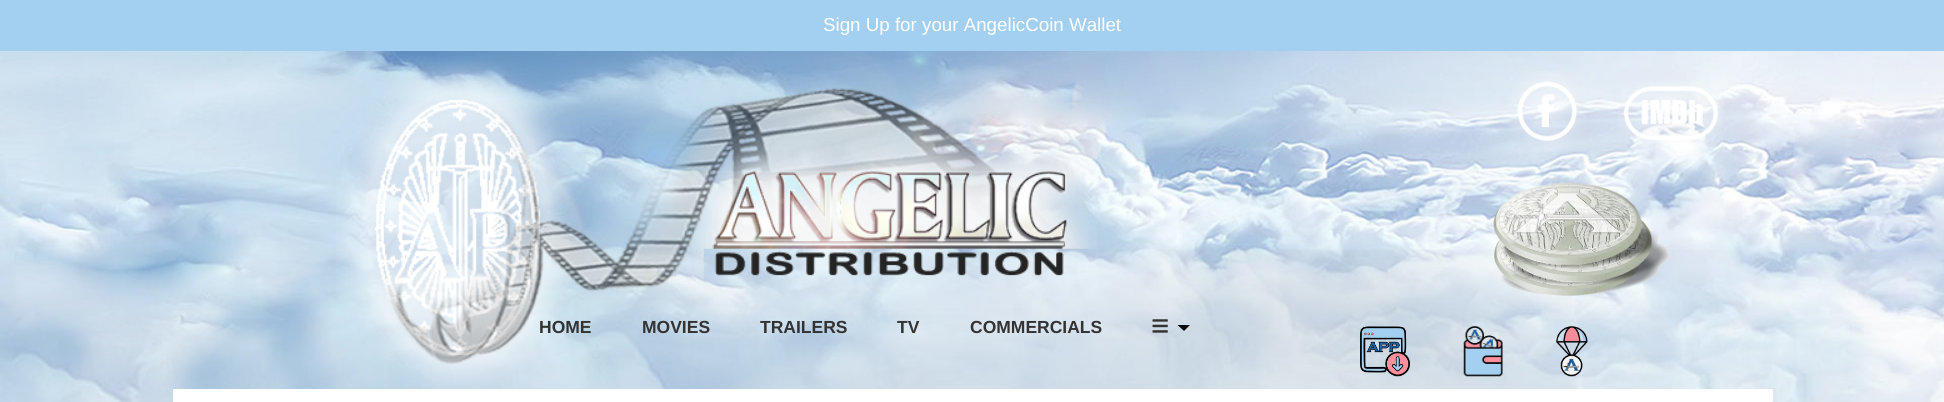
#include <cairo/cairo.h>
#include <math.h>
#include <stddef.h>

typedef struct { double x, y; const char *s; } line_t;
static cairo_t *cr;

static void rgb(unsigned color)
{
	cairo_set_source_rgb(cr, (color >> 16) / 255.0, (color >> 8 & 255) / 255.0, (color & 255) / 255.0);
}

static void image(const char *path, double x, double y, double w, double h)
{
	cairo_surface_t *image = cairo_image_surface_create_from_png(path);
	cairo_save(cr);
	cairo_set_source_surface(cr, image, x, y);
	cairo_rectangle(cr, x, y, w, h);
	cairo_fill(cr);
	cairo_restore(cr);
	cairo_surface_destroy(image);
}

int main(void) {
	cairo_surface_t *surface = cairo_image_surface_create(CAIRO_FORMAT_RGB24, 1944, 402);
	cr = cairo_create(surface);
	cairo_font_options_t *options = cairo_font_options_create();
	cairo_font_options_set_hint_metrics(options, CAIRO_HINT_METRICS_OFF);
	cairo_font_options_set_hint_style(options, CAIRO_HINT_STYLE_NONE);
	cairo_set_font_options(cr, options);
	cairo_set_miter_limit(cr, 4);
	rgb(0xffffff);
	cairo_paint(cr);
	rgb(0xa3d0f1);
	cairo_rectangle(cr, 0, 0, 1944, 51);
	cairo_fill(cr);
	image("img/1.png", 0, 51, 1944, 351);
	image("img/2.png", 336, 56, 762, 333);
	image("img/3.png", 1493, 182, 177, 114);
	image("img/4.png", 1360, 326, 50, 51);
	image("img/5.png", 1463, 326, 40, 51);
	image("img/6.png", 1556, 326, 32, 51);
	image("img/7.png", 1508, 71, 79, 81);
	image("img/8.png", 1618, 82, 105, 61);
	image("img/9.png", 1152, 319, 16, 14);
	rgb(0x030202);
	cairo_new_path(cr);
	cairo_move_to(cr, 1177.5, 325);
	cairo_line_to(cr, 1190, 325);
	cairo_line_to(cr, 1184, 331);
	cairo_close_path(cr);
	cairo_fill(cr);
	rgb(0xffffff);
	cairo_rectangle(cr, 173, 389, 1600, 13);
	cairo_fill(cr);
	cairo_select_font_face(cr, "Liberation Sans", CAIRO_FONT_SLANT_NORMAL, CAIRO_FONT_WEIGHT_NORMAL);
	cairo_set_font_size(cr, 18.75);
	cairo_move_to(cr, 823, 31);
	cairo_show_text(cr, "Sign Up for your AngelicCoin Wallet");
	cairo_select_font_face(cr, "Liberation Sans", CAIRO_FONT_SLANT_NORMAL, CAIRO_FONT_WEIGHT_BOLD);
	cairo_set_font_size(cr, 17.5);
	rgb(0x333333);
	{
		static const line_t items[] = {
			{539, 333, "HOME"},
			{642, 333, "MOVIES"},
			{760, 333, "TRAILERS"},
			{897, 333, "TV"},
			{970, 333, "COMMERCIALS"},
		};
		for (size_t i = 0; i < sizeof items / sizeof *items; i++) {
			cairo_move_to(cr, items[i].x, items[i].y);
			cairo_show_text(cr, items[i].s);
		}
	}
	cairo_surface_write_to_png(surface, "page.png");
	cairo_font_options_destroy(options);
	cairo_destroy(cr);
	cairo_surface_destroy(surface);
	return 0;
}
